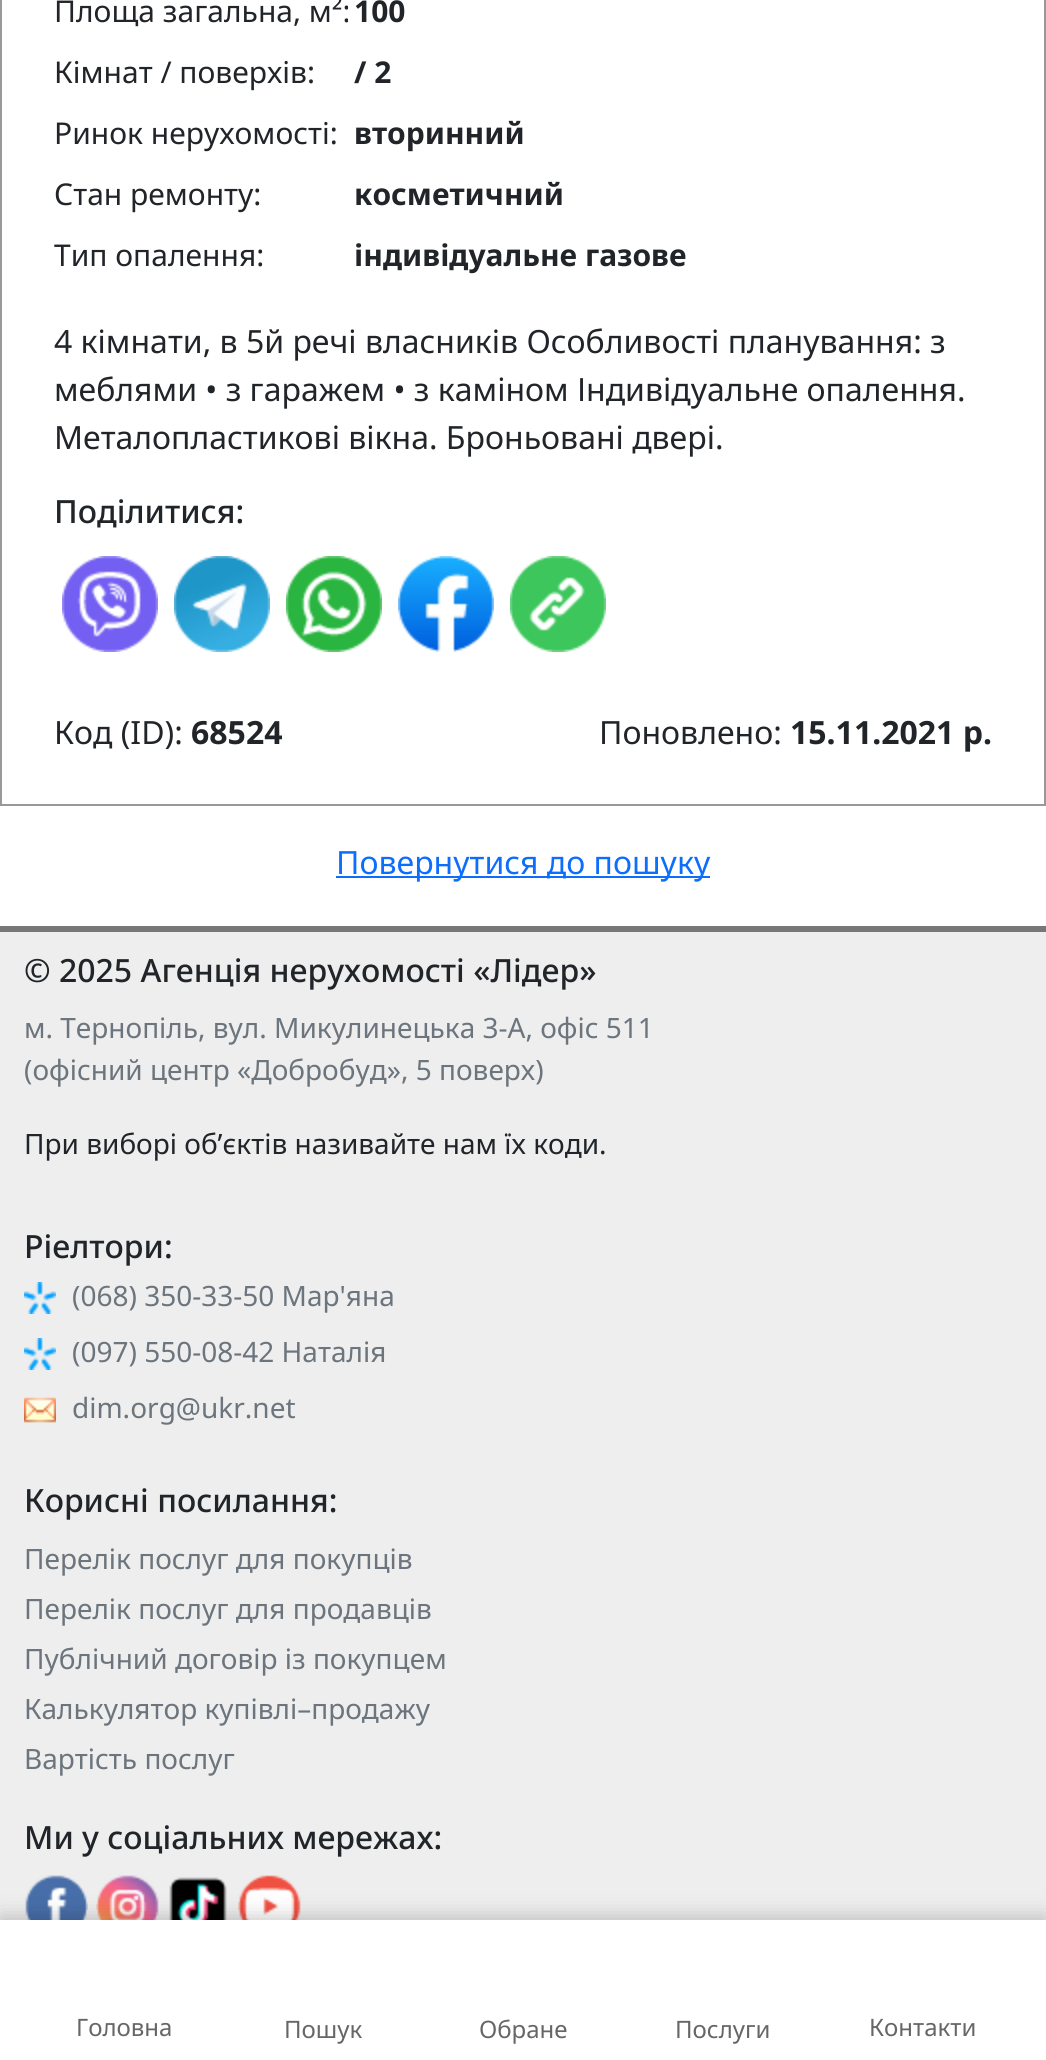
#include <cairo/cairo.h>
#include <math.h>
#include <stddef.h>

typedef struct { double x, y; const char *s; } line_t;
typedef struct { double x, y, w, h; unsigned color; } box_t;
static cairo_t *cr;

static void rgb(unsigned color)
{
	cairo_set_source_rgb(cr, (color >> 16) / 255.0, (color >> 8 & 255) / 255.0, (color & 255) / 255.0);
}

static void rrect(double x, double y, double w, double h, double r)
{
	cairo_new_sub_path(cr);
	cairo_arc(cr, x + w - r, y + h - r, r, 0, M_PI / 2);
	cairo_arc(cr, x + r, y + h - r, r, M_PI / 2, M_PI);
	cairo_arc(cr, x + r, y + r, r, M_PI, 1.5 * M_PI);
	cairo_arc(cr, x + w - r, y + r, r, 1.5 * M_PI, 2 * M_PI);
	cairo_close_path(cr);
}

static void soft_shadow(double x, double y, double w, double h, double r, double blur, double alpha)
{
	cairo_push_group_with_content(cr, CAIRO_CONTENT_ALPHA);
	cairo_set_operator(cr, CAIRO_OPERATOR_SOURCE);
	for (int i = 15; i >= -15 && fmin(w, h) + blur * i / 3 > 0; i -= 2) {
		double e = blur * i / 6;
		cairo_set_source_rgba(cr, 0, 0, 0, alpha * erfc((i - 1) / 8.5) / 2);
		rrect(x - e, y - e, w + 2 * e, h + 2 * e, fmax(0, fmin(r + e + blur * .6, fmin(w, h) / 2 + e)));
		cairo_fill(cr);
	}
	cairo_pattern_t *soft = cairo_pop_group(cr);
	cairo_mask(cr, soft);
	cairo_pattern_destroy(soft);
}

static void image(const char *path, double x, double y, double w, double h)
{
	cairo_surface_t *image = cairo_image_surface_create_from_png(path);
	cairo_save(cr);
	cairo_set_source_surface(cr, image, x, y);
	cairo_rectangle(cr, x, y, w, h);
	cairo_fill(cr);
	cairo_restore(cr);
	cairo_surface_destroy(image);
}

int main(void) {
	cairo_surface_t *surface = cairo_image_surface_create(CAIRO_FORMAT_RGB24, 1046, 2060);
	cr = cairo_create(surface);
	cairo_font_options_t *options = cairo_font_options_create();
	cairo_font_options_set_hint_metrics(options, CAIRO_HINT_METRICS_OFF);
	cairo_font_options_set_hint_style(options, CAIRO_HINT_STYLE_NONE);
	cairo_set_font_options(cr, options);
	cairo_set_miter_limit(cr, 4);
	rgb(0xffffff);
	cairo_paint(cr);
	cairo_rectangle(cr, 1, -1, 1044, 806);
	rgb(0x999999);
	cairo_stroke(cr);
	image("img/1.png", 62, 556, 96, 96);
	image("img/2.png", 174, 556, 96, 96);
	image("img/3.png", 286, 556, 96, 96);
	image("img/4.png", 398, 556, 96, 96);
	image("img/5.png", 510, 556, 96, 96);
	{
		static const box_t items[] = {
			{336, 876, 374, 2, 0x0d6efd},
			{0, 932, 1046, 988, 0xeeeeee},
			{0, 926, 1046, 6, 0x777777},
		};
		for (size_t i = 0; i < sizeof items / sizeof *items; i++) {
			rgb(items[i].color);
			cairo_rectangle(cr, items[i].x, items[i].y, items[i].w, items[i].h);
			cairo_fill(cr);
		}
	}
	image("img/6.png", 24, 1282, 32, 32);
	image("img/6.png", 24, 1338, 32, 32);
	image("img/7.png", 24, 1397, 32, 26);
	image("img/8.png", 25, 1875, 63, 45);
	image("img/9.png", 96, 1875, 63, 45);
	image("img/10.png", 169, 1877, 58, 43);
	image("img/11.png", 238, 1875, 63, 45);
	rgb(0x000000);
	soft_shadow(0, 1916, 1046, 140, 0, 10, 0.2);
	rgb(0xffffff);
	cairo_rectangle(cr, 0, 1920, 1046, 140);
	cairo_fill(cr);
	cairo_select_font_face(cr, "Noto Sans", CAIRO_FONT_SLANT_NORMAL, CAIRO_FONT_WEIGHT_NORMAL);
	cairo_set_font_size(cr, 30);
	rgb(0x212529);
	cairo_move_to(cr, 54, 22);
	cairo_show_text(cr, "Площа загальна, м²:");
	cairo_select_font_face(cr, "Noto Sans", CAIRO_FONT_SLANT_NORMAL, CAIRO_FONT_WEIGHT_BOLD);
	cairo_move_to(cr, 354, 22);
	cairo_show_text(cr, "100");
	cairo_select_font_face(cr, "Noto Sans", CAIRO_FONT_SLANT_NORMAL, CAIRO_FONT_WEIGHT_NORMAL);
	cairo_move_to(cr, 54, 83);
	cairo_show_text(cr, "Кімнат / поверхів:");
	cairo_select_font_face(cr, "Noto Sans", CAIRO_FONT_SLANT_NORMAL, CAIRO_FONT_WEIGHT_BOLD);
	cairo_move_to(cr, 354, 83);
	cairo_show_text(cr, "/ 2");
	cairo_select_font_face(cr, "Noto Sans", CAIRO_FONT_SLANT_NORMAL, CAIRO_FONT_WEIGHT_NORMAL);
	cairo_move_to(cr, 54, 144);
	cairo_show_text(cr, "Ринок нерухомості:");
	cairo_select_font_face(cr, "Noto Sans", CAIRO_FONT_SLANT_NORMAL, CAIRO_FONT_WEIGHT_BOLD);
	cairo_move_to(cr, 354, 144);
	cairo_show_text(cr, "вторинний");
	cairo_select_font_face(cr, "Noto Sans", CAIRO_FONT_SLANT_NORMAL, CAIRO_FONT_WEIGHT_NORMAL);
	cairo_move_to(cr, 54, 205);
	cairo_show_text(cr, "Стан ремонту:");
	cairo_select_font_face(cr, "Noto Sans", CAIRO_FONT_SLANT_NORMAL, CAIRO_FONT_WEIGHT_BOLD);
	cairo_move_to(cr, 354, 205);
	cairo_show_text(cr, "косметичний");
	cairo_select_font_face(cr, "Noto Sans", CAIRO_FONT_SLANT_NORMAL, CAIRO_FONT_WEIGHT_NORMAL);
	cairo_move_to(cr, 54, 266);
	cairo_show_text(cr, "Тип опалення:");
	cairo_select_font_face(cr, "Noto Sans", CAIRO_FONT_SLANT_NORMAL, CAIRO_FONT_WEIGHT_BOLD);
	cairo_move_to(cr, 354, 266);
	cairo_show_text(cr, "індивідуальне газове");
	cairo_select_font_face(cr, "Noto Sans", CAIRO_FONT_SLANT_NORMAL, CAIRO_FONT_WEIGHT_NORMAL);
	cairo_set_font_size(cr, 32);
	{
		static const line_t items[] = {
			{54, 353, "4 кімнати, в 5й речі власників Особливості планування: з"},
			{54, 401, "меблями • з гаражем • з каміном Індивідуальне опалення."},
			{54, 449, "Металопластикові вікна. Броньовані двері."},
		};
		for (size_t i = 0; i < sizeof items / sizeof *items; i++) {
			cairo_move_to(cr, items[i].x, items[i].y);
			cairo_show_text(cr, items[i].s);
		}
	}
	cairo_select_font_face(cr, "Noto Sans Medium", CAIRO_FONT_SLANT_NORMAL, CAIRO_FONT_WEIGHT_NORMAL);
	cairo_move_to(cr, 54, 523);
	cairo_show_text(cr, "Поділитися:");
	cairo_select_font_face(cr, "Noto Sans", CAIRO_FONT_SLANT_NORMAL, CAIRO_FONT_WEIGHT_NORMAL);
	cairo_move_to(cr, 54, 744);
	cairo_show_text(cr, "Код (ID):");
	cairo_select_font_face(cr, "Noto Sans", CAIRO_FONT_SLANT_NORMAL, CAIRO_FONT_WEIGHT_BOLD);
	cairo_move_to(cr, 191, 744);
	cairo_show_text(cr, "68524");
	cairo_select_font_face(cr, "Noto Sans", CAIRO_FONT_SLANT_NORMAL, CAIRO_FONT_WEIGHT_NORMAL);
	cairo_move_to(cr, 599, 744);
	cairo_show_text(cr, "Поновлено:");
	cairo_select_font_face(cr, "Noto Sans", CAIRO_FONT_SLANT_NORMAL, CAIRO_FONT_WEIGHT_BOLD);
	cairo_move_to(cr, 790, 744);
	cairo_show_text(cr, "15.11.2021 р.");
	cairo_select_font_face(cr, "Noto Sans", CAIRO_FONT_SLANT_NORMAL, CAIRO_FONT_WEIGHT_NORMAL);
	rgb(0x0d6efd);
	cairo_move_to(cr, 336, 874);
	cairo_show_text(cr, "Повернутися до пошуку");
	cairo_select_font_face(cr, "Noto Sans Medium", CAIRO_FONT_SLANT_NORMAL, CAIRO_FONT_WEIGHT_NORMAL);
	rgb(0x212529);
	cairo_move_to(cr, 24, 982);
	cairo_show_text(cr, "© 2025 Агенція нерухомості «Лідер»");
	cairo_select_font_face(cr, "Noto Sans", CAIRO_FONT_SLANT_NORMAL, CAIRO_FONT_WEIGHT_NORMAL);
	cairo_set_font_size(cr, 28);
	rgb(0x6c757d);
	cairo_move_to(cr, 24, 1038);
	cairo_show_text(cr, "м. Тернопіль, вул. Микулинецька 3-А, офіс 511");
	cairo_move_to(cr, 24, 1080);
	cairo_show_text(cr, "(офісний центр «Добробуд», 5 поверх)");
	rgb(0x212529);
	cairo_move_to(cr, 24, 1154);
	cairo_show_text(cr, "При виборі об’єктів називайте нам їх коди.");
	cairo_select_font_face(cr, "Noto Sans Medium", CAIRO_FONT_SLANT_NORMAL, CAIRO_FONT_WEIGHT_NORMAL);
	cairo_set_font_size(cr, 32);
	cairo_move_to(cr, 24, 1258);
	cairo_show_text(cr, "Ріелтори:");
	cairo_select_font_face(cr, "Noto Sans", CAIRO_FONT_SLANT_NORMAL, CAIRO_FONT_WEIGHT_NORMAL);
	cairo_set_font_size(cr, 28);
	rgb(0x6c757d);
	{
		static const line_t items[] = {
			{72, 1306, "(068) 350-33-50 Мар'яна"},
			{72, 1362, "(097) 550-08-42 Наталія"},
			{72, 1418, "dim.org@ukr.net"},
		};
		for (size_t i = 0; i < sizeof items / sizeof *items; i++) {
			cairo_move_to(cr, items[i].x, items[i].y);
			cairo_show_text(cr, items[i].s);
		}
	}
	cairo_select_font_face(cr, "Noto Sans Medium", CAIRO_FONT_SLANT_NORMAL, CAIRO_FONT_WEIGHT_NORMAL);
	cairo_set_font_size(cr, 32);
	rgb(0x212529);
	cairo_move_to(cr, 24, 1512);
	cairo_show_text(cr, "Корисні посилання:");
	cairo_select_font_face(cr, "Noto Sans", CAIRO_FONT_SLANT_NORMAL, CAIRO_FONT_WEIGHT_NORMAL);
	cairo_set_font_size(cr, 28);
	rgb(0x6c757d);
	{
		static const line_t items[] = {
			{24, 1569, "Перелік послуг для покупців"},
			{24, 1619, "Перелік послуг для продавців"},
			{24, 1669, "Публічний договір із покупцем"},
			{24, 1719, "Калькулятор купівлі–продажу"},
			{24, 1769, "Вартість послуг"},
		};
		for (size_t i = 0; i < sizeof items / sizeof *items; i++) {
			cairo_move_to(cr, items[i].x, items[i].y);
			cairo_show_text(cr, items[i].s);
		}
	}
	cairo_select_font_face(cr, "Noto Sans Medium", CAIRO_FONT_SLANT_NORMAL, CAIRO_FONT_WEIGHT_NORMAL);
	cairo_set_font_size(cr, 32);
	rgb(0x212529);
	cairo_move_to(cr, 24, 1849);
	cairo_show_text(cr, "Ми у соціальних мережах:");
	cairo_select_font_face(cr, "Noto Sans", CAIRO_FONT_SLANT_NORMAL, CAIRO_FONT_WEIGHT_NORMAL);
	cairo_set_font_size(cr, 24);
	rgb(0x666666);
	{
		static const line_t items[] = {
			{76, 2036, "Головна"},
			{284, 2038, "Пошук"},
			{479, 2038, "Обране"},
			{675, 2038, "Послуги"},
			{869, 2036, "Контакти"},
		};
		for (size_t i = 0; i < sizeof items / sizeof *items; i++) {
			cairo_move_to(cr, items[i].x, items[i].y);
			cairo_show_text(cr, items[i].s);
		}
	}
	cairo_surface_write_to_png(surface, "page.png");
	cairo_font_options_destroy(options);
	cairo_destroy(cr);
	cairo_surface_destroy(surface);
	return 0;
}
